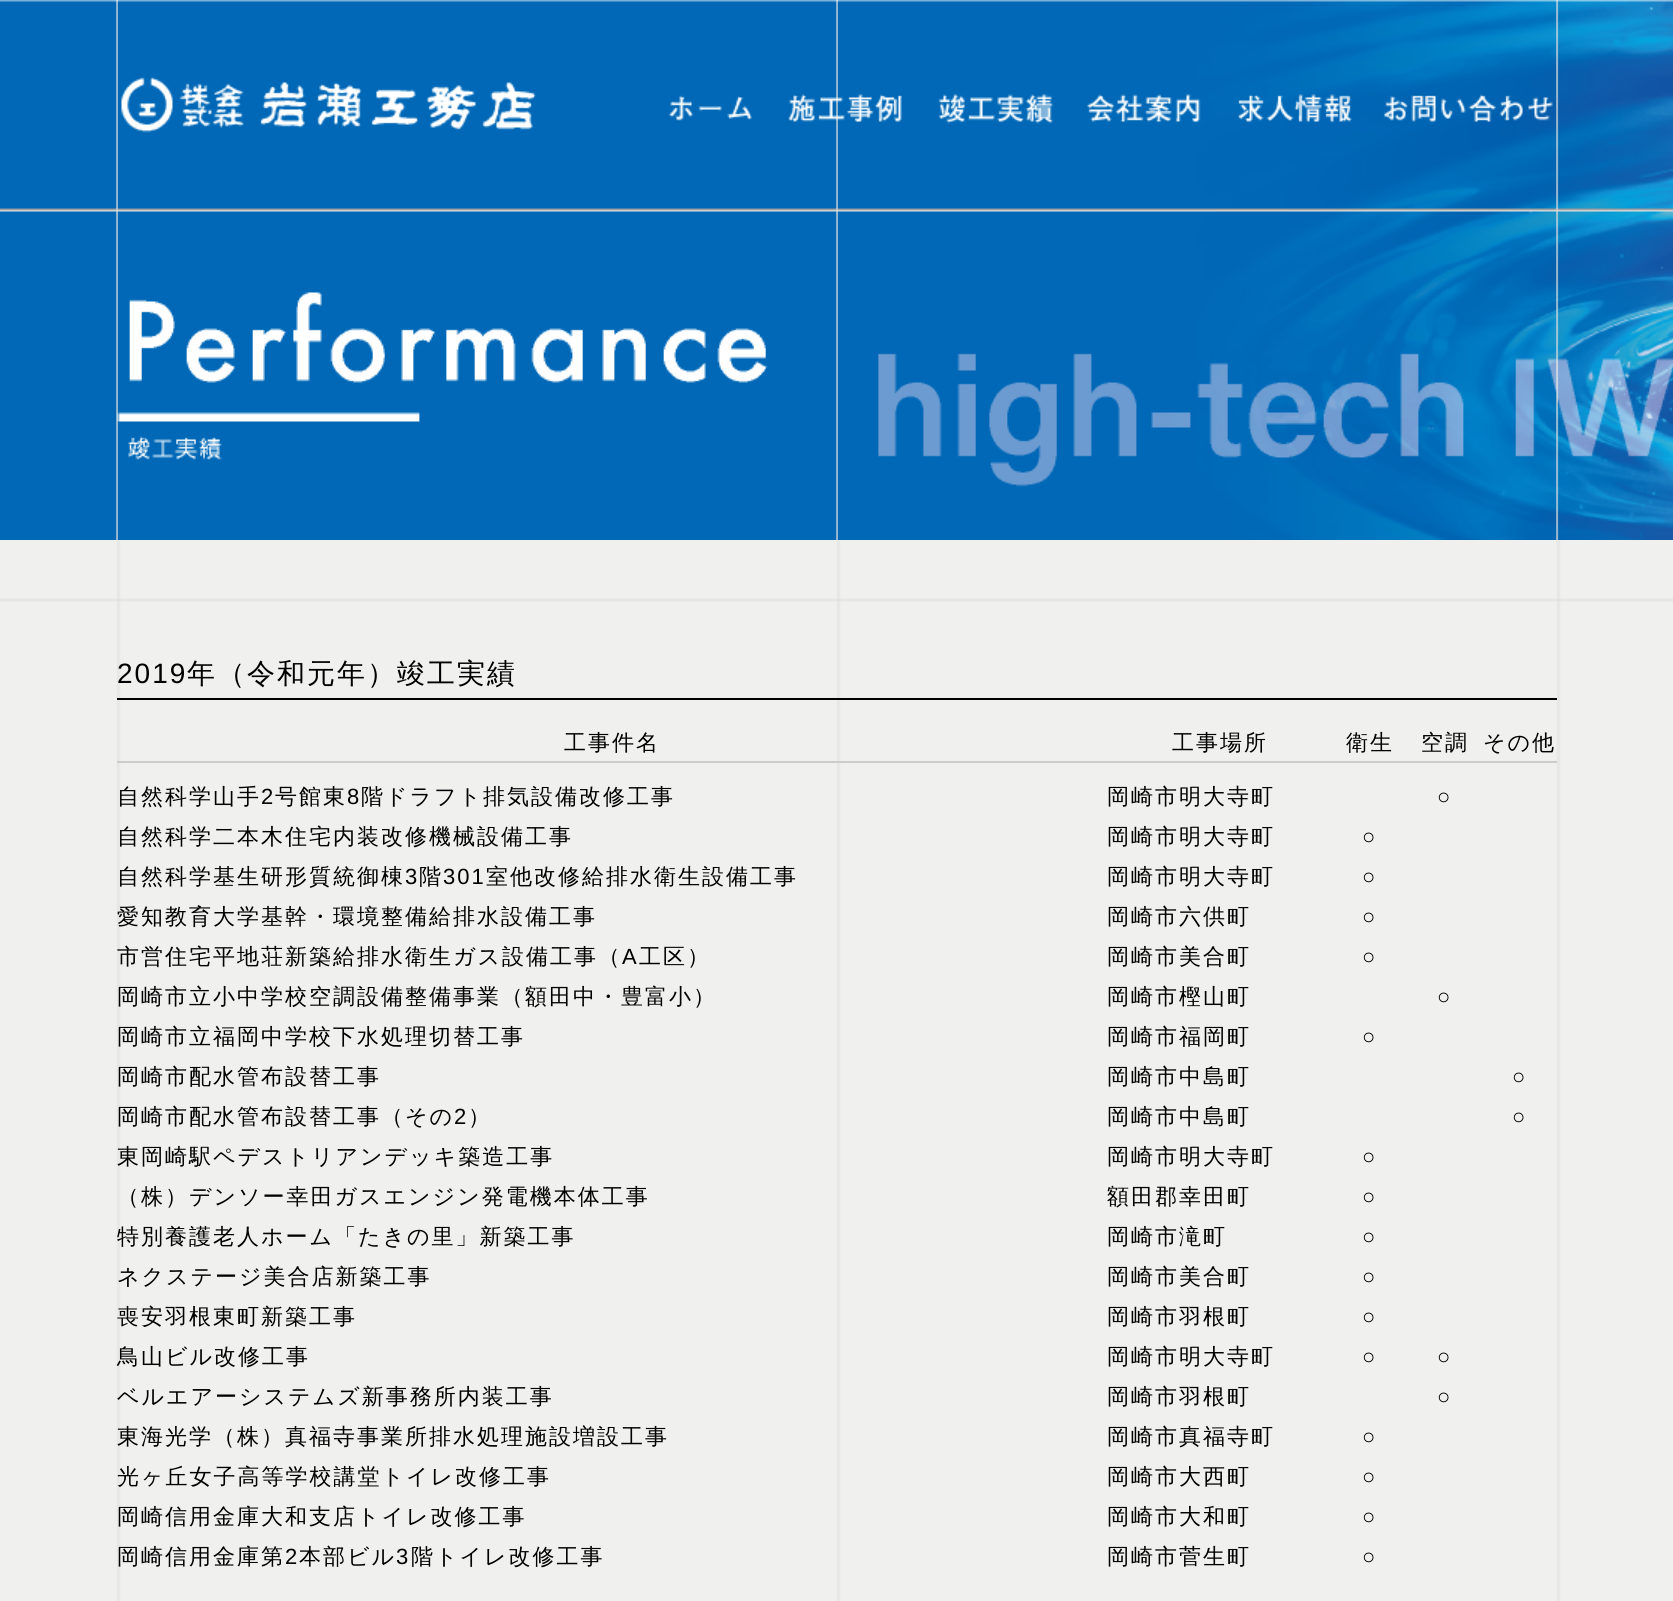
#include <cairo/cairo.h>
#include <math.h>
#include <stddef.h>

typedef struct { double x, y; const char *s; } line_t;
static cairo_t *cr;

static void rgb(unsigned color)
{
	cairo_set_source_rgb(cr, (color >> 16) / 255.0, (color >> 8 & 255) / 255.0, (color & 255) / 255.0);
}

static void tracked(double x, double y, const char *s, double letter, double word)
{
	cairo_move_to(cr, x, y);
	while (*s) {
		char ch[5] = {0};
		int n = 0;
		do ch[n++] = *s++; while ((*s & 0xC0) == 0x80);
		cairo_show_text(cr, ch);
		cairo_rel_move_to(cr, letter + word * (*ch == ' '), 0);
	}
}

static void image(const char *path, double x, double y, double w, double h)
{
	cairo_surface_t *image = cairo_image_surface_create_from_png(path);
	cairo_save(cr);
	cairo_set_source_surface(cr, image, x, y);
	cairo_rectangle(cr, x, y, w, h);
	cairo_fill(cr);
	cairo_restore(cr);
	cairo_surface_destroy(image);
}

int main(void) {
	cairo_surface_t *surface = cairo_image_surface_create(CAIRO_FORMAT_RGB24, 1673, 1601);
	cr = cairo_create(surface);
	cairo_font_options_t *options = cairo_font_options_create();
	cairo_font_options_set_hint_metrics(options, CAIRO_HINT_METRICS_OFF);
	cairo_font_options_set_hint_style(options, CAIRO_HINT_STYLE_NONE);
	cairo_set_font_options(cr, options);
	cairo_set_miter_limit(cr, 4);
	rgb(0xffffff);
	cairo_paint(cr);
	image("img/1.png", 0, 0, 1673, 540);
	image("img/2.png", 121, 77, 415, 56);
	image("img/3.png", 668, 95, 84, 26);
	image("img/4.png", 788, 94, 114, 28);
	image("img/5.png", 938, 94, 116, 30);
	image("img/6.png", 1087, 94, 114, 28);
	image("img/7.png", 1237, 94, 115, 28);
	image("img/8.png", 1383, 94, 170, 28);
	image("img/9.png", 0, 540, 1673, 1061);
	rgb(0x000000);
	cairo_rectangle(cr, 117, 698, 1440, 2);
	cairo_fill(cr);
	rgb(0xcccccc);
	cairo_rectangle(cr, 117, 761, 1440, 2);
	cairo_fill(cr);
	cairo_select_font_face(cr, "Liberation Sans", CAIRO_FONT_SLANT_NORMAL, CAIRO_FONT_WEIGHT_NORMAL);
	cairo_set_font_size(cr, 28);
	rgb(0x000000);
	tracked(117, 683, "2019", 2, 0);
	cairo_select_font_face(cr, "WenQuanYi Zen Hei Medium", CAIRO_FONT_SLANT_NORMAL, CAIRO_FONT_WEIGHT_NORMAL);
	tracked(187, 683, "年（令和元年）竣工実績", 2, 0);
	cairo_set_font_size(cr, 22);
	{
		static const line_t items[] = {
			{564, 750, "工事件名"},
			{1172, 750, "工事場所"},
			{1346, 750, "衛生"},
			{1421, 750, "空調"},
			{1483, 750, "その他"},
			{117, 804, "自然科学山手"},
		};
		for (size_t i = 0; i < sizeof items / sizeof *items; i++) {
			tracked(items[i].x, items[i].y, items[i].s, 2, 0);
		}
	}
	cairo_select_font_face(cr, "Liberation Sans", CAIRO_FONT_SLANT_NORMAL, CAIRO_FONT_WEIGHT_NORMAL);
	tracked(261, 804, "2", 2, 0);
	cairo_select_font_face(cr, "WenQuanYi Zen Hei Medium", CAIRO_FONT_SLANT_NORMAL, CAIRO_FONT_WEIGHT_NORMAL);
	tracked(275, 804, "号館東", 2, 0);
	cairo_select_font_face(cr, "Liberation Sans", CAIRO_FONT_SLANT_NORMAL, CAIRO_FONT_WEIGHT_NORMAL);
	tracked(347, 804, "8", 2, 0);
	cairo_select_font_face(cr, "WenQuanYi Zen Hei Medium", CAIRO_FONT_SLANT_NORMAL, CAIRO_FONT_WEIGHT_NORMAL);
	{
		static const line_t items[] = {
			{361, 804, "階ドラフト排気設備改修工事"},
			{117, 844, "自然科学二本木住宅内装改修機械設備工事"},
			{117, 884, "自然科学基生研形質統御棟"},
		};
		for (size_t i = 0; i < sizeof items / sizeof *items; i++) {
			tracked(items[i].x, items[i].y, items[i].s, 2, 0);
		}
	}
	cairo_select_font_face(cr, "Liberation Sans", CAIRO_FONT_SLANT_NORMAL, CAIRO_FONT_WEIGHT_NORMAL);
	tracked(405, 884, "3", 2, 0);
	cairo_select_font_face(cr, "WenQuanYi Zen Hei Medium", CAIRO_FONT_SLANT_NORMAL, CAIRO_FONT_WEIGHT_NORMAL);
	tracked(419, 884, "階", 2, 0);
	cairo_select_font_face(cr, "Liberation Sans", CAIRO_FONT_SLANT_NORMAL, CAIRO_FONT_WEIGHT_NORMAL);
	tracked(443, 884, "301", 2, 0);
	cairo_select_font_face(cr, "WenQuanYi Zen Hei Medium", CAIRO_FONT_SLANT_NORMAL, CAIRO_FONT_WEIGHT_NORMAL);
	{
		static const line_t items[] = {
			{486, 884, "室他改修給排水衛生設備工事"},
			{117, 924, "愛知教育大学基幹・環境整備給排水設備工事"},
			{117, 964, "市営住宅平地荘新築給排水衛生ガス設備工事（"},
		};
		for (size_t i = 0; i < sizeof items / sizeof *items; i++) {
			tracked(items[i].x, items[i].y, items[i].s, 2, 0);
		}
	}
	cairo_select_font_face(cr, "Liberation Sans", CAIRO_FONT_SLANT_NORMAL, CAIRO_FONT_WEIGHT_NORMAL);
	tracked(622, 964, "A", 2, 0);
	cairo_select_font_face(cr, "WenQuanYi Zen Hei Medium", CAIRO_FONT_SLANT_NORMAL, CAIRO_FONT_WEIGHT_NORMAL);
	{
		static const line_t items[] = {
			{639, 964, "工区）"},
			{117, 1004, "岡崎市立小中学校空調設備整備事業（額田中・豊富小）"},
			{117, 1044, "岡崎市立福岡中学校下水処理切替工事"},
			{117, 1084, "岡崎市配水管布設替工事"},
			{117, 1124, "岡崎市配水管布設替工事（その"},
		};
		for (size_t i = 0; i < sizeof items / sizeof *items; i++) {
			tracked(items[i].x, items[i].y, items[i].s, 2, 0);
		}
	}
	cairo_select_font_face(cr, "Liberation Sans", CAIRO_FONT_SLANT_NORMAL, CAIRO_FONT_WEIGHT_NORMAL);
	tracked(454, 1124, "2", 2, 0);
	cairo_select_font_face(cr, "WenQuanYi Zen Hei Medium", CAIRO_FONT_SLANT_NORMAL, CAIRO_FONT_WEIGHT_NORMAL);
	{
		static const line_t items[] = {
			{468, 1124, "）"},
			{117, 1164, "東岡崎駅ペデストリアンデッキ築造工事"},
			{117, 1204, "（株）デンソー幸田ガスエンジン発電機本体工事"},
			{117, 1244, "特別養護老人ホーム「たきの里」新築工事"},
			{117, 1284, "ネクステージ美合店新築工事"},
			{117, 1324, "喪安羽根東町新築工事"},
			{117, 1364, "鳥山ビル改修工事"},
			{117, 1404, "ベルエアーシステムズ新事務所内装工事"},
			{117, 1444, "東海光学（株）真福寺事業所排水処理施設増設工事"},
			{117, 1484, "光ヶ丘女子高等学校講堂トイレ改修工事"},
			{117, 1524, "岡崎信用金庫大和支店トイレ改修工事"},
			{117, 1564, "岡崎信用金庫第"},
		};
		for (size_t i = 0; i < sizeof items / sizeof *items; i++) {
			tracked(items[i].x, items[i].y, items[i].s, 2, 0);
		}
	}
	cairo_select_font_face(cr, "Liberation Sans", CAIRO_FONT_SLANT_NORMAL, CAIRO_FONT_WEIGHT_NORMAL);
	tracked(285, 1564, "2", 2, 0);
	cairo_select_font_face(cr, "WenQuanYi Zen Hei Medium", CAIRO_FONT_SLANT_NORMAL, CAIRO_FONT_WEIGHT_NORMAL);
	tracked(299, 1564, "本部ビル", 2, 0);
	cairo_select_font_face(cr, "Liberation Sans", CAIRO_FONT_SLANT_NORMAL, CAIRO_FONT_WEIGHT_NORMAL);
	tracked(396, 1564, "3", 2, 0);
	cairo_select_font_face(cr, "WenQuanYi Zen Hei Medium", CAIRO_FONT_SLANT_NORMAL, CAIRO_FONT_WEIGHT_NORMAL);
	{
		static const line_t items[] = {
			{411, 1564, "階トイレ改修工事"},
			{1107, 804, "岡崎市明大寺町"},
			{1107, 844, "岡崎市明大寺町"},
			{1107, 884, "岡崎市明大寺町"},
			{1107, 924, "岡崎市六供町"},
			{1107, 964, "岡崎市美合町"},
			{1107, 1004, "岡崎市樫山町"},
			{1107, 1044, "岡崎市福岡町"},
			{1107, 1084, "岡崎市中島町"},
			{1107, 1124, "岡崎市中島町"},
			{1107, 1164, "岡崎市明大寺町"},
			{1107, 1204, "額田郡幸田町"},
			{1107, 1244, "岡崎市滝町"},
			{1107, 1284, "岡崎市美合町"},
			{1107, 1324, "岡崎市羽根町"},
			{1107, 1364, "岡崎市明大寺町"},
			{1107, 1404, "岡崎市羽根町"},
			{1107, 1444, "岡崎市真福寺町"},
			{1107, 1484, "岡崎市大西町"},
			{1107, 1524, "岡崎市大和町"},
			{1107, 1564, "岡崎市菅生町"},
		};
		for (size_t i = 0; i < sizeof items / sizeof *items; i++) {
			tracked(items[i].x, items[i].y, items[i].s, 2, 0);
		}
	}
	cairo_select_font_face(cr, "Liberation Sans", CAIRO_FONT_SLANT_NORMAL, CAIRO_FONT_WEIGHT_NORMAL);
	{
		static const line_t items[] = {
			{1362, 844, "○"},
			{1362, 884, "○"},
			{1362, 924, "○"},
			{1362, 964, "○"},
			{1362, 1044, "○"},
			{1362, 1164, "○"},
			{1362, 1204, "○"},
			{1362, 1244, "○"},
			{1362, 1284, "○"},
			{1362, 1324, "○"},
			{1362, 1364, "○"},
			{1362, 1444, "○"},
			{1362, 1484, "○"},
			{1362, 1524, "○"},
			{1362, 1564, "○"},
			{1437, 804, "○"},
			{1437, 1004, "○"},
			{1437, 1364, "○"},
			{1437, 1404, "○"},
			{1512, 1084, "○"},
			{1512, 1124, "○"},
		};
		for (size_t i = 0; i < sizeof items / sizeof *items; i++) {
			tracked(items[i].x, items[i].y, items[i].s, 2, 0);
		}
	}
	cairo_surface_write_to_png(surface, "page.png");
	cairo_font_options_destroy(options);
	cairo_destroy(cr);
	cairo_surface_destroy(surface);
	return 0;
}
